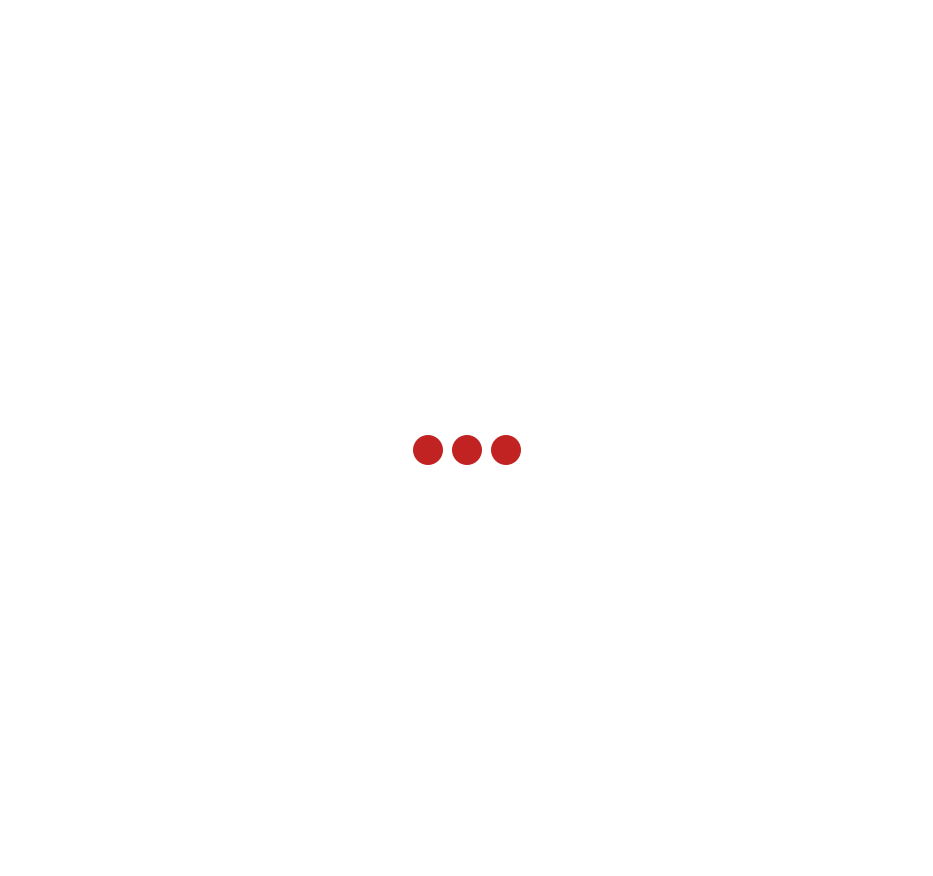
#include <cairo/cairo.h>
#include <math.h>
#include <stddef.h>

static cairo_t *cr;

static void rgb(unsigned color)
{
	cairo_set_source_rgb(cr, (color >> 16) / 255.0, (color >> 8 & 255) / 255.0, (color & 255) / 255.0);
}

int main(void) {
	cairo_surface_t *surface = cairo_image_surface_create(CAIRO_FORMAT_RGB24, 933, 876);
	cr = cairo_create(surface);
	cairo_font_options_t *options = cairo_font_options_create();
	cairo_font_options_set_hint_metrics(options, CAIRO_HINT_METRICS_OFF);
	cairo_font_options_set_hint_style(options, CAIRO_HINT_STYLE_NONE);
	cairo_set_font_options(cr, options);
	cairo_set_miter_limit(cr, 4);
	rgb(0xffffff);
	cairo_paint(cr);
	rgb(0xc12323);
	cairo_arc(cr, 428, 450, 15, 0, 2 * M_PI);
	cairo_fill(cr);
	cairo_arc(cr, 467, 450, 15, 0, 2 * M_PI);
	cairo_fill(cr);
	cairo_arc(cr, 506, 450, 15, 0, 2 * M_PI);
	cairo_fill(cr);
	cairo_surface_write_to_png(surface, "page.png");
	cairo_font_options_destroy(options);
	cairo_destroy(cr);
	cairo_surface_destroy(surface);
	return 0;
}
